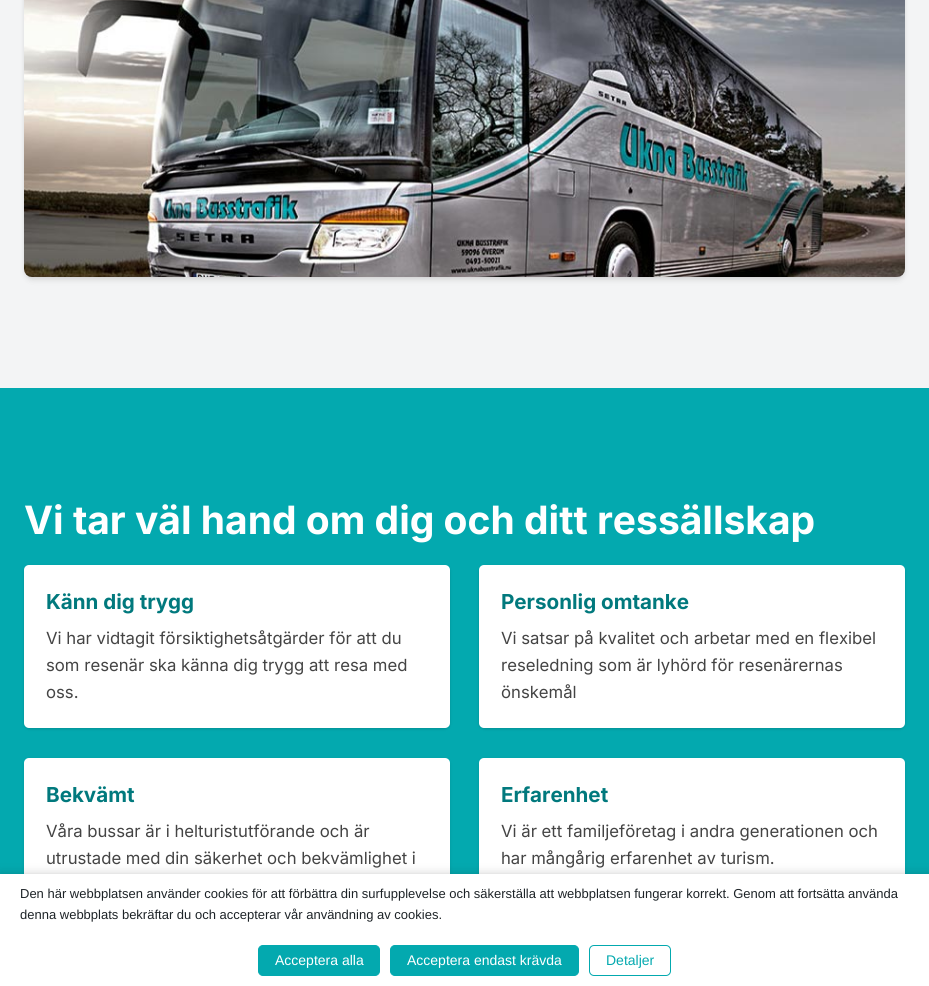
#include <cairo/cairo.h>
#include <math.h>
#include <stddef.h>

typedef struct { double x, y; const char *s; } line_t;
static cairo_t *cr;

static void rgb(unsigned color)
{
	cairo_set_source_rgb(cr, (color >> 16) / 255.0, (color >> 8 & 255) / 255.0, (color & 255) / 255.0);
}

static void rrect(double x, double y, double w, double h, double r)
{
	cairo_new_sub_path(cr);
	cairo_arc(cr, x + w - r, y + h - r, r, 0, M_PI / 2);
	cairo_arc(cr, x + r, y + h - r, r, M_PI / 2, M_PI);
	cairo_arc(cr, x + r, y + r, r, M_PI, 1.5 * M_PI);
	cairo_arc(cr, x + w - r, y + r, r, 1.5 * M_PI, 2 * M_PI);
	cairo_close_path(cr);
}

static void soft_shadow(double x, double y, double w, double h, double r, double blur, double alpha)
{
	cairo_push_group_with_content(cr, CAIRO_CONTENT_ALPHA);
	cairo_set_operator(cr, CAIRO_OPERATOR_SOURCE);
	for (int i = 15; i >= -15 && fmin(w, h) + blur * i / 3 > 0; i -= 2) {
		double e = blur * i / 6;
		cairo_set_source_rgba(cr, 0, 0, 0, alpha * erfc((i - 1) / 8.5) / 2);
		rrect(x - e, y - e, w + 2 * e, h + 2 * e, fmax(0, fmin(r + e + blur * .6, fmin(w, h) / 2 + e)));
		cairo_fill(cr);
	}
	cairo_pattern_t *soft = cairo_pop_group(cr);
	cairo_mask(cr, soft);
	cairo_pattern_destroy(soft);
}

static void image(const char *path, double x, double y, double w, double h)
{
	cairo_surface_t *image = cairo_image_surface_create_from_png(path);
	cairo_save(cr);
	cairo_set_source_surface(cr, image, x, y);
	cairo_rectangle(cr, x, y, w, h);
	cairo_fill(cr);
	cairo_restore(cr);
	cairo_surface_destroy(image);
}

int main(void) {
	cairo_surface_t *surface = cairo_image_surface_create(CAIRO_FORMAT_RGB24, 929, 986);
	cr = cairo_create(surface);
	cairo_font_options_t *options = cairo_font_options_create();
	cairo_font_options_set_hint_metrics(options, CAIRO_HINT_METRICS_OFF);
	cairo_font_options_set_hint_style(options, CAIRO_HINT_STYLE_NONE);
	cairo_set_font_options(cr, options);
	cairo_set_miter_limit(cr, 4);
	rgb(0xf3f4f5);
	cairo_paint(cr);
	rgb(0x000000);
	soft_shadow(25, -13, 879, 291, 7, 2, 0.06);
	soft_shadow(25, -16, 879, 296, 7, 3, 0.1);
	image("img/1.png", 24, 0, 881, 277);
	rgb(0x03a9af);
	cairo_rectangle(cr, 0, 388, 929, 486);
	cairo_fill(cr);
	rgb(0x000000);
	soft_shadow(24, 566, 426, 163, 5, 1, 0.06);
	soft_shadow(24, 566, 426, 163, 5, 1.5, 0.1);
	rgb(0xffffff);
	rrect(24, 565, 426, 163, 5);
	cairo_fill(cr);
	rgb(0x000000);
	soft_shadow(479, 566, 426, 163, 5, 1, 0.06);
	soft_shadow(479, 566, 426, 163, 5, 1.5, 0.1);
	rgb(0xffffff);
	rrect(479, 565, 426, 163, 5);
	cairo_fill(cr);
	rgb(0x000000);
	soft_shadow(24, 759, 426, 163, 5, 1.5, 0.1);
	rgb(0xffffff);
	rrect(24, 758, 426, 163, 5);
	cairo_fill(cr);
	rgb(0x000000);
	soft_shadow(479, 759, 426, 136, 5, 1.5, 0.1);
	rgb(0xffffff);
	rrect(479, 758, 426, 136, 5);
	cairo_fill(cr);
	rgb(0x000000);
	soft_shadow(0, 874, 929, 112, 0, 5, 0.2);
	rgb(0xffffff);
	cairo_rectangle(cr, 0, 874, 929, 112);
	cairo_fill(cr);
	rgb(0x03a9af);
	rrect(258.5, 945.5, 121, 30, 4.5);
	cairo_fill_preserve(cr);
	cairo_set_line_width(cr, 1);
	cairo_stroke(cr);
	rrect(390.5, 945.5, 188, 30, 4.5);
	cairo_fill_preserve(cr);
	cairo_stroke(cr);
	rrect(589.5, 945.5, 81, 30, 4.5);
	cairo_stroke(cr);
	cairo_select_font_face(cr, "Inter", CAIRO_FONT_SLANT_NORMAL, CAIRO_FONT_WEIGHT_BOLD);
	cairo_set_font_size(cr, 39);
	rgb(0xffffff);
	cairo_move_to(cr, 24, 534);
	cairo_show_text(cr, "Vi tar väl hand om dig och ditt ressällskap");
	cairo_set_font_size(cr, 20.6);
	rgb(0x01797d);
	cairo_move_to(cr, 46, 609);
	cairo_show_text(cr, "Känn dig trygg");
	cairo_select_font_face(cr, "Inter", CAIRO_FONT_SLANT_NORMAL, CAIRO_FONT_WEIGHT_NORMAL);
	cairo_set_font_size(cr, 16.7);
	rgb(0x444444);
	{
		static const line_t items[] = {
			{46, 644, "Vi har vidtagit försiktighetsåtgärder för att du"},
			{46, 671, "som resenär ska känna dig trygg att resa med"},
			{46, 698, "oss."},
		};
		for (size_t i = 0; i < sizeof items / sizeof *items; i++) {
			cairo_move_to(cr, items[i].x, items[i].y);
			cairo_show_text(cr, items[i].s);
		}
	}
	cairo_select_font_face(cr, "Inter", CAIRO_FONT_SLANT_NORMAL, CAIRO_FONT_WEIGHT_BOLD);
	cairo_set_font_size(cr, 20.6);
	rgb(0x01797d);
	cairo_move_to(cr, 501, 609);
	cairo_show_text(cr, "Personlig omtanke");
	cairo_select_font_face(cr, "Inter", CAIRO_FONT_SLANT_NORMAL, CAIRO_FONT_WEIGHT_NORMAL);
	cairo_set_font_size(cr, 16.7);
	rgb(0x444444);
	{
		static const line_t items[] = {
			{501, 644, "Vi satsar på kvalitet och arbetar med en flexibel"},
			{501, 671, "reseledning som är lyhörd för resenärernas"},
			{501, 698, "önskemål"},
		};
		for (size_t i = 0; i < sizeof items / sizeof *items; i++) {
			cairo_move_to(cr, items[i].x, items[i].y);
			cairo_show_text(cr, items[i].s);
		}
	}
	cairo_select_font_face(cr, "Inter", CAIRO_FONT_SLANT_NORMAL, CAIRO_FONT_WEIGHT_BOLD);
	cairo_set_font_size(cr, 20.6);
	rgb(0x01797d);
	cairo_move_to(cr, 46, 802);
	cairo_show_text(cr, "Bekvämt");
	cairo_select_font_face(cr, "Inter", CAIRO_FONT_SLANT_NORMAL, CAIRO_FONT_WEIGHT_NORMAL);
	cairo_set_font_size(cr, 16.7);
	rgb(0x444444);
	cairo_move_to(cr, 46, 837);
	cairo_show_text(cr, "Våra bussar är i helturistutförande och är");
	cairo_move_to(cr, 46, 864);
	cairo_show_text(cr, "utrustade med din säkerhet och bekvämlighet i");
	cairo_select_font_face(cr, "Inter", CAIRO_FONT_SLANT_NORMAL, CAIRO_FONT_WEIGHT_BOLD);
	cairo_set_font_size(cr, 20.6);
	rgb(0x01797d);
	cairo_move_to(cr, 501, 802);
	cairo_show_text(cr, "Erfarenhet");
	cairo_select_font_face(cr, "Inter", CAIRO_FONT_SLANT_NORMAL, CAIRO_FONT_WEIGHT_NORMAL);
	cairo_set_font_size(cr, 16.7);
	rgb(0x444444);
	cairo_move_to(cr, 501, 837);
	cairo_show_text(cr, "Vi är ett familjeföretag i andra generationen och");
	cairo_move_to(cr, 501, 864);
	cairo_show_text(cr, "har mångårig erfarenhet av turism.");
	cairo_select_font_face(cr, "Liberation Sans", CAIRO_FONT_SLANT_NORMAL, CAIRO_FONT_WEIGHT_NORMAL);
	cairo_set_font_size(cr, 13);
	rgb(0x1d2327);
	cairo_move_to(cr, 20, 898);
	cairo_show_text(cr, "Den här webbplatsen använder cookies för att förbättra din surfupplevelse och säkerställa att webbplatsen fungerar korrekt. Genom att fortsätta använda");
	cairo_move_to(cr, 20, 919);
	cairo_show_text(cr, "denna webbplats bekräftar du och accepterar vår användning av cookies.");
	cairo_set_font_size(cr, 14);
	rgb(0xffffff);
	cairo_move_to(cr, 275, 965);
	cairo_show_text(cr, "Acceptera alla");
	cairo_move_to(cr, 407, 965);
	cairo_show_text(cr, "Acceptera endast krävda");
	rgb(0x03a9af);
	cairo_move_to(cr, 606, 965);
	cairo_show_text(cr, "Detaljer");
	cairo_surface_write_to_png(surface, "page.png");
	cairo_font_options_destroy(options);
	cairo_destroy(cr);
	cairo_surface_destroy(surface);
	return 0;
}
